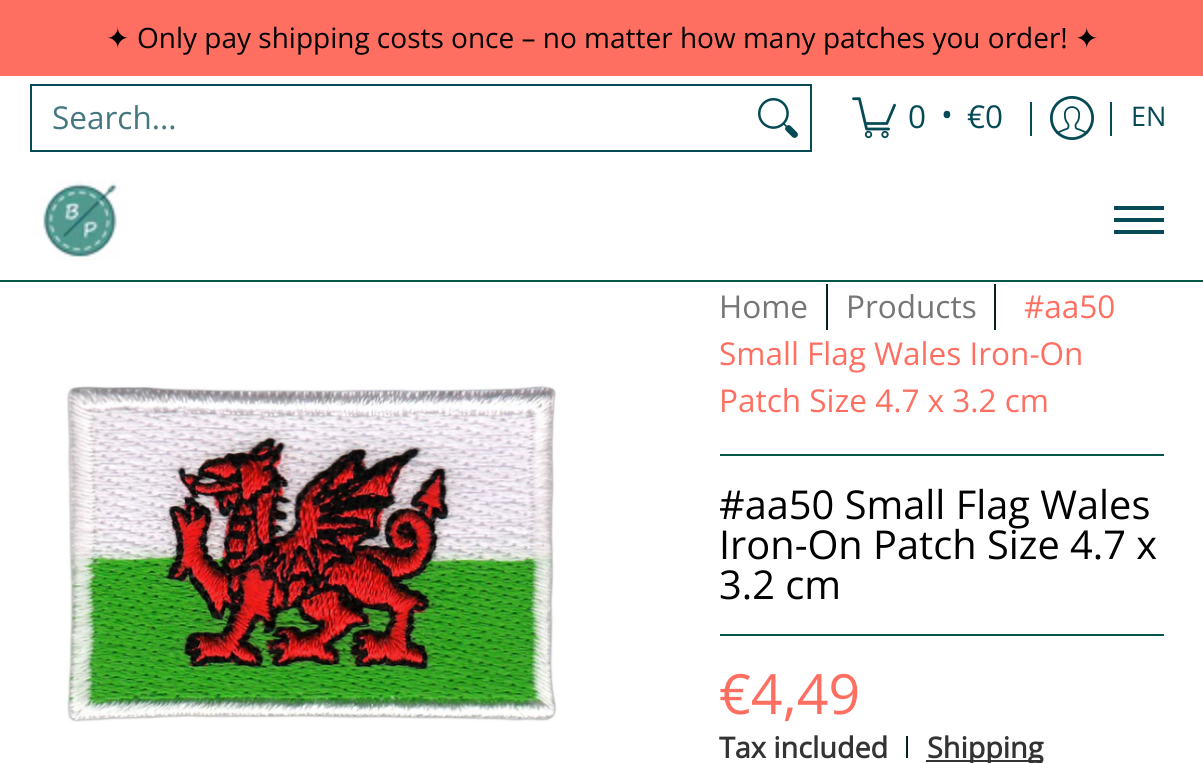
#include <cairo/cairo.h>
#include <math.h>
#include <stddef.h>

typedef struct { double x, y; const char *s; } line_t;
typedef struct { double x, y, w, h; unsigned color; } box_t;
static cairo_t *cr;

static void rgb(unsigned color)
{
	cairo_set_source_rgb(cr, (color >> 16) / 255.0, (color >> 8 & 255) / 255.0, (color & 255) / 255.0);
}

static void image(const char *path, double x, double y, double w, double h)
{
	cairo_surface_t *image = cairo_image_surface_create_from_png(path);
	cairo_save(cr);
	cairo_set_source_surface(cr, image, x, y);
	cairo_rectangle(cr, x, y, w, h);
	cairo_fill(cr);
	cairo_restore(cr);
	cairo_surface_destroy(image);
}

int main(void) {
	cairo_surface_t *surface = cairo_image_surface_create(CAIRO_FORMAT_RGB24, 1203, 763);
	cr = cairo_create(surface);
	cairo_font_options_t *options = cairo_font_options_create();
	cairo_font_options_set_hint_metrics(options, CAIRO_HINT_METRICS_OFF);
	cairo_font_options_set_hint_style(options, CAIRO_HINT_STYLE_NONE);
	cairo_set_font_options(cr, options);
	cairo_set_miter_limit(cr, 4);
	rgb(0xffffff);
	cairo_paint(cr);
	rgb(0xff6f61);
	cairo_rectangle(cr, 0, 0, 1203, 76);
	cairo_fill(cr);
	cairo_rectangle(cr, 31, 85, 780, 66);
	rgb(0x054a55);
	cairo_stroke(cr);
	image("img/1.png", 758, 98, 40, 40);
	image("img/2.png", 852, 97, 44, 42);
	cairo_rectangle(cr, 1030, 102, 2, 34);
	cairo_fill(cr);
	image("img/3.png", 1050, 96, 44, 44);
	cairo_rectangle(cr, 1110, 102, 2, 34);
	cairo_fill(cr);
	rgb(0x05554a);
	cairo_rectangle(cr, 0, 280, 1203, 2);
	cairo_fill(cr);
	image("img/4.png", 40, 180, 80, 80);
	{
		static const box_t items[] = {
			{1114, 206, 50, 4, 0x054a55},
			{1114, 230, 50, 4, 0x054a55},
			{1114, 218, 50, 4, 0x054a55},
		};
		for (size_t i = 0; i < sizeof items / sizeof *items; i++) {
			rgb(items[i].color);
			cairo_rectangle(cr, items[i].x, items[i].y, items[i].w, items[i].h);
			cairo_fill(cr);
		}
	}
	image("img/5.png", 64, 385, 493, 337);
	{
		static const box_t items[] = {
			{720, 454, 444, 2, 0x05554a},
			{826, 284, 2, 46, 0x022520},
			{994, 284, 2, 46, 0x022520},
			{720, 634, 444, 2, 0x05554a},
			{906, 736, 2, 22, 0x022520},
			{926, 760, 116, 2, 0x333333},
		};
		for (size_t i = 0; i < sizeof items / sizeof *items; i++) {
			rgb(items[i].color);
			cairo_rectangle(cr, items[i].x, items[i].y, items[i].w, items[i].h);
			cairo_fill(cr);
		}
	}
	cairo_select_font_face(cr, "DejaVu Sans", CAIRO_FONT_SLANT_NORMAL, CAIRO_FONT_WEIGHT_NORMAL);
	cairo_set_font_size(cr, 28);
	rgb(0x000000);
	cairo_move_to(cr, 106, 48);
	cairo_show_text(cr, "✦");
	cairo_select_font_face(cr, "Open Sans", CAIRO_FONT_SLANT_NORMAL, CAIRO_FONT_WEIGHT_NORMAL);
	cairo_move_to(cr, 137, 48);
	cairo_show_text(cr, "Only pay shipping costs once – no matter how many patches you order!");
	cairo_select_font_face(cr, "DejaVu Sans", CAIRO_FONT_SLANT_NORMAL, CAIRO_FONT_WEIGHT_NORMAL);
	cairo_move_to(cr, 1075, 48);
	cairo_show_text(cr, "✦");
	cairo_select_font_face(cr, "Open Sans", CAIRO_FONT_SLANT_NORMAL, CAIRO_FONT_WEIGHT_NORMAL);
	cairo_set_font_size(cr, 31.5);
	rgb(0x447780);
	cairo_move_to(cr, 52, 129);
	cairo_show_text(cr, "Search...");
	rgb(0x054a55);
	{
		static const line_t items[] = {
			{908, 128, "0"},
			{941, 126, "•"},
			{967, 128, "€0"},
		};
		for (size_t i = 0; i < sizeof items / sizeof *items; i++) {
			cairo_move_to(cr, items[i].x, items[i].y);
			cairo_show_text(cr, items[i].s);
		}
	}
	cairo_set_font_size(cr, 27);
	cairo_move_to(cr, 1131, 126);
	cairo_show_text(cr, "EN");
	cairo_set_font_size(cr, 31.5);
	rgb(0x767676);
	cairo_move_to(cr, 719, 318);
	cairo_show_text(cr, "Home");
	cairo_move_to(cr, 846, 318);
	cairo_show_text(cr, "Products");
	rgb(0xff6f61);
	{
		static const line_t items[] = {
			{1024, 318, "#aa50"},
			{719, 365, "Small Flag Wales Iron-On"},
			{719, 412, "Patch Size 4.7 x 3.2 cm"},
		};
		for (size_t i = 0; i < sizeof items / sizeof *items; i++) {
			cairo_move_to(cr, items[i].x, items[i].y);
			cairo_show_text(cr, items[i].s);
		}
	}
	cairo_set_font_size(cr, 39.75);
	rgb(0x000000);
	{
		static const line_t items[] = {
			{719, 519, "#aa50 Small Flag Wales"},
			{719, 559, "Iron-On Patch Size 4.7 x"},
			{719, 599, "3.2 cm"},
		};
		for (size_t i = 0; i < sizeof items / sizeof *items; i++) {
			cairo_move_to(cr, items[i].x, items[i].y);
			cairo_show_text(cr, items[i].s);
		}
	}
	cairo_set_font_size(cr, 55.5);
	rgb(0xff6f61);
	cairo_move_to(cr, 719, 714);
	cairo_show_text(cr, "€4,49");
	cairo_select_font_face(cr, "Open Sans", CAIRO_FONT_SLANT_NORMAL, CAIRO_FONT_WEIGHT_BOLD);
	cairo_set_font_size(cr, 28.75);
	rgb(0x333333);
	cairo_move_to(cr, 719, 758);
	cairo_show_text(cr, "Tax included");
	cairo_move_to(cr, 927, 758);
	cairo_show_text(cr, "Shipping");
	cairo_surface_write_to_png(surface, "page.png");
	cairo_font_options_destroy(options);
	cairo_destroy(cr);
	cairo_surface_destroy(surface);
	return 0;
}
